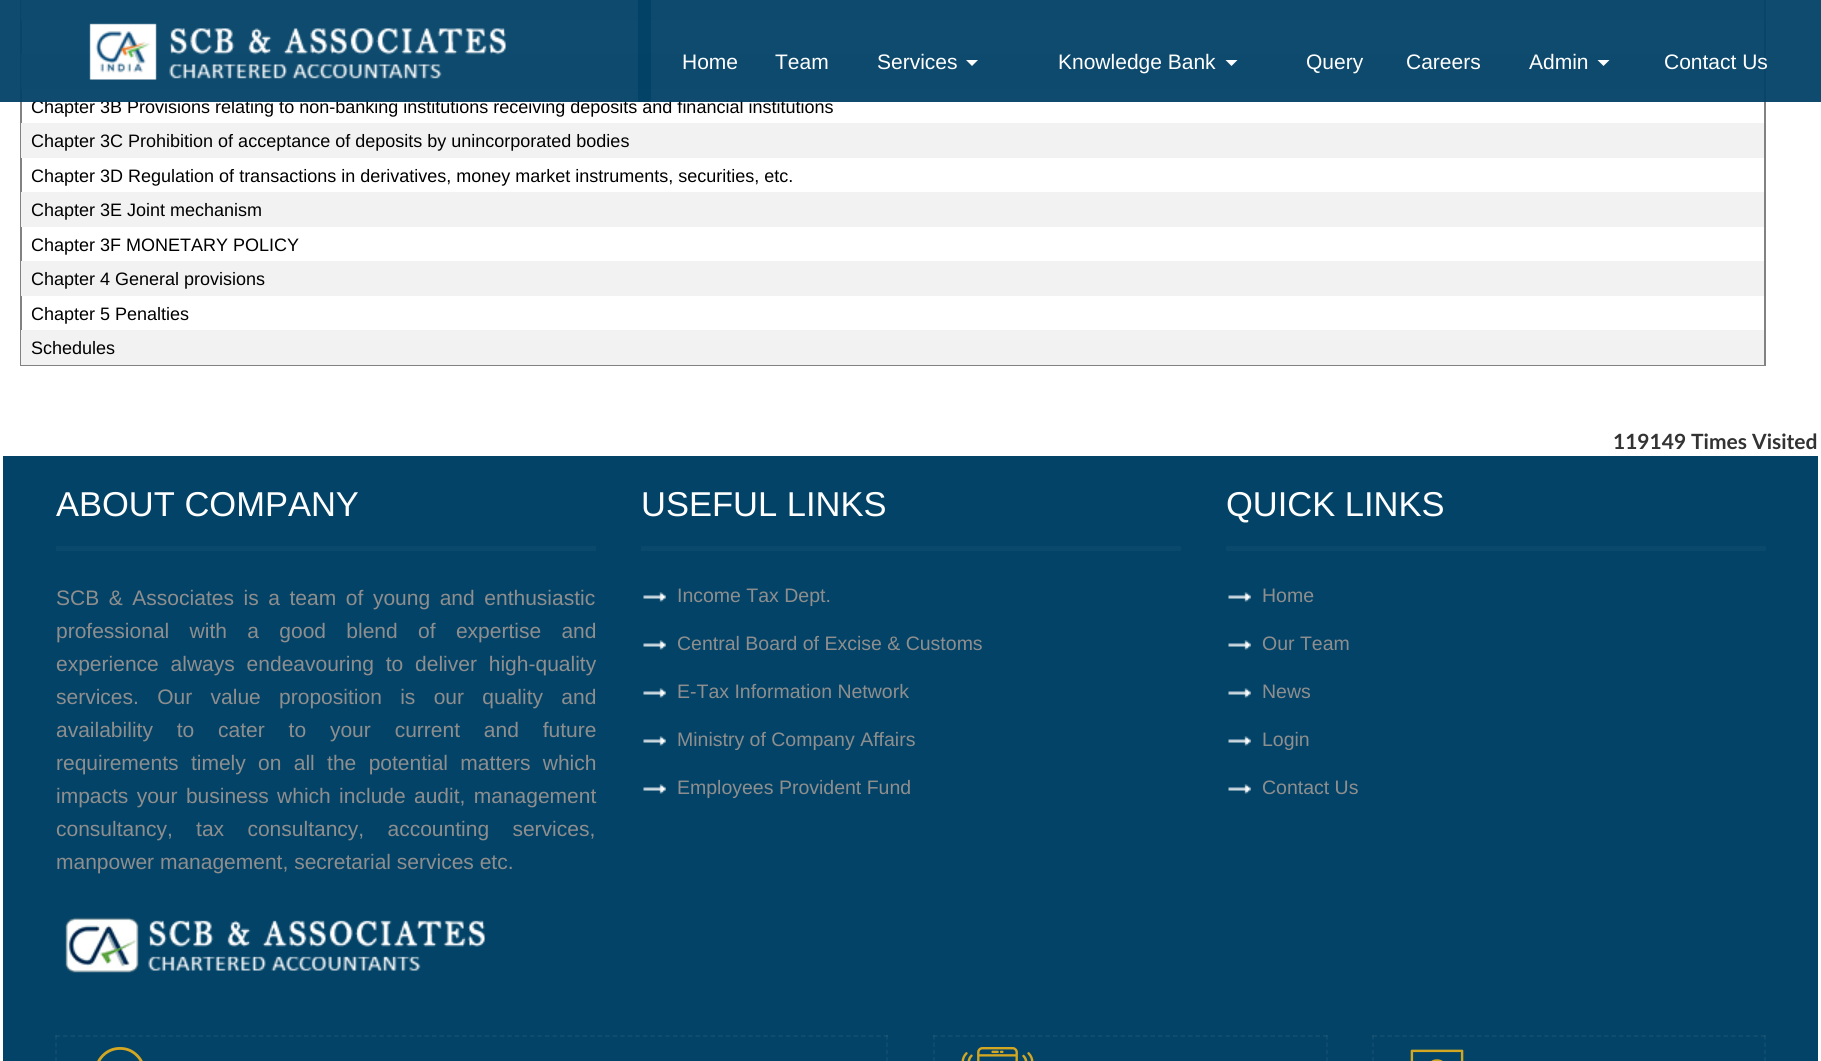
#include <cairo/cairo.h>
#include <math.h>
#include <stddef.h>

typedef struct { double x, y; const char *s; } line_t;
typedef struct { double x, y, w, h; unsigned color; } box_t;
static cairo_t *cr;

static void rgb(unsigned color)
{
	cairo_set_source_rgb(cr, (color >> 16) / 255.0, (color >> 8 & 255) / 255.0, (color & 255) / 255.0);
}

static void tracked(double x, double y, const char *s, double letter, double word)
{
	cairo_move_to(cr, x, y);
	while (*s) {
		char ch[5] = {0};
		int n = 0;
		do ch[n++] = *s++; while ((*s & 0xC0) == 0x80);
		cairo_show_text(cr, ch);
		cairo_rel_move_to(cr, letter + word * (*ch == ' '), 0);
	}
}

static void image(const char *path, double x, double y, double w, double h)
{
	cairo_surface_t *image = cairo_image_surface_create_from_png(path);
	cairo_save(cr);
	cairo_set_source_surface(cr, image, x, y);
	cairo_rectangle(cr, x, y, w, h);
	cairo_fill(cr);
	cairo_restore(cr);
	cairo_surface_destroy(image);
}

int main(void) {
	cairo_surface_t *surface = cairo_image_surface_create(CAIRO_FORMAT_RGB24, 1821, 1061);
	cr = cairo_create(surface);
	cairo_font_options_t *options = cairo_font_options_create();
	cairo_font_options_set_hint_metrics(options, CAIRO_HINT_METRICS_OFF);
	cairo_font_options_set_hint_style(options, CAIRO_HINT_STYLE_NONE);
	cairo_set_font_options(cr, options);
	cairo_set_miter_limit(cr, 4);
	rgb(0xffffff);
	cairo_paint(cr);
	cairo_rectangle(cr, 21, -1, 1744, 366);
	rgb(0x828282);
	cairo_stroke(cr);
	{
		static const box_t items[] = {
			{21, 0, 1743, 20, 0xf2f2f2},
			{21, 54, 1743, 35, 0xf2f2f2},
			{21, 123, 1743, 35, 0xf2f2f2},
			{21, 192, 1743, 35, 0xf2f2f2},
			{21, 261, 1743, 35, 0xf2f2f2},
			{21, 330, 1743, 35, 0xf2f2f2},
			{3, 456, 1815, 605, 0x034367},
			{56, 546, 540, 5, 0x0b496c},
		};
		for (size_t i = 0; i < sizeof items / sizeof *items; i++) {
			rgb(items[i].color);
			cairo_rectangle(cr, items[i].x, items[i].y, items[i].w, items[i].h);
			cairo_fill(cr);
		}
	}
	image("img/2.png", 65, 917, 421, 56);
	cairo_rectangle(cr, 641, 546, 540, 5);
	cairo_fill(cr);
	image("img/3.png", 643, 592, 23, 10);
	image("img/3.png", 643, 640, 23, 10);
	image("img/3.png", 643, 688, 23, 10);
	image("img/3.png", 643, 736, 23, 10);
	image("img/3.png", 643, 784, 23, 10);
	cairo_rectangle(cr, 1226, 546, 540, 5);
	cairo_fill(cr);
	image("img/4.png", 1228, 592, 23, 10);
	image("img/4.png", 1228, 640, 23, 10);
	image("img/4.png", 1228, 688, 23, 10);
	image("img/4.png", 1228, 736, 23, 10);
	image("img/4.png", 1228, 784, 23, 10);
	cairo_new_path(cr);
	cairo_move_to(cr, 55.5, 1036);
	cairo_line_to(cr, 888, 1036);
	rgb(0x124e70);
	cairo_set_line_width(cr, 1.5);
	cairo_set_dash(cr, (double[]){4.5, 3.03}, 2, 0);
	cairo_stroke(cr);
	cairo_new_path(cr);
	cairo_move_to(cr, 887, 1035);
	cairo_line_to(cr, 887, 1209);
	cairo_set_source_rgba(cr, 1, 1, 1, 0.06);
	cairo_set_dash(cr, (double[]){4.5, 2.86}, 2, 0);
	cairo_stroke(cr);
	cairo_new_path(cr);
	cairo_move_to(cr, 56, 1035);
	cairo_line_to(cr, 56, 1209);
	cairo_stroke(cr);
	image("img/5.png", 97, 1047, 46, 14);
	cairo_new_path(cr);
	cairo_move_to(cr, 933, 1036);
	cairo_line_to(cr, 1327.5, 1036);
	rgb(0x124e70);
	cairo_set_dash(cr, (double[]){4.5, 3}, 2, 0);
	cairo_stroke(cr);
	cairo_new_path(cr);
	cairo_move_to(cr, 1327, 1035);
	cairo_line_to(cr, 1327, 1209);
	cairo_set_source_rgba(cr, 1, 1, 1, 0.06);
	cairo_set_dash(cr, (double[]){4.5, 2.86}, 2, 0);
	cairo_stroke(cr);
	cairo_new_path(cr);
	cairo_move_to(cr, 934, 1035);
	cairo_line_to(cr, 934, 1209);
	cairo_stroke(cr);
	image("img/6.png", 961, 1047, 73, 14);
	cairo_new_path(cr);
	cairo_move_to(cr, 1372.5, 1036);
	cairo_line_to(cr, 1765.5, 1036);
	rgb(0x124e70);
	cairo_set_dash(cr, (double[]){4.5, 2.97}, 2, 0);
	cairo_stroke(cr);
	cairo_new_path(cr);
	cairo_move_to(cr, 1765, 1035);
	cairo_line_to(cr, 1765, 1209);
	cairo_set_source_rgba(cr, 1, 1, 1, 0.06);
	cairo_set_dash(cr, (double[]){4.5, 2.86}, 2, 0);
	cairo_stroke(cr);
	cairo_new_path(cr);
	cairo_move_to(cr, 1373, 1035);
	cairo_line_to(cr, 1373, 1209);
	cairo_stroke(cr);
	image("img/7.png", 1410, 1049, 54, 12);
	cairo_select_font_face(cr, "Liberation Sans", CAIRO_FONT_SLANT_NORMAL, CAIRO_FONT_WEIGHT_NORMAL);
	cairo_set_font_size(cr, 18);
	rgb(0x000000);
	cairo_move_to(cr, 31, 113);
	cairo_show_text(cr, "Chapter 3B Provisions relating to non-banking institutions receiving deposits and financial institutions");
	cairo_set_source_rgba(cr, 0.012, 0.263, 0.404, 0.95);
	cairo_rectangle(cr, 0, 0, 651, 102);
	cairo_fill(cr);
	cairo_rectangle(cr, 638, 0, 1183, 102);
	cairo_fill(cr);
	cairo_set_font_size(cr, 21);
	rgb(0xffffff);
	cairo_move_to(cr, 1664, 69);
	cairo_show_text(cr, "Contact Us");
	cairo_new_path(cr);
	cairo_move_to(cr, 1597.5, 60);
	cairo_line_to(cr, 1609.5, 60);
	cairo_line_to(cr, 1603.5, 66);
	cairo_close_path(cr);
	cairo_fill(cr);
	{
		static const line_t items[] = {
			{1529, 69, "Admin"},
			{1406, 69, "Careers"},
			{1306, 69, "Query"},
		};
		for (size_t i = 0; i < sizeof items / sizeof *items; i++) {
			cairo_move_to(cr, items[i].x, items[i].y);
			cairo_show_text(cr, items[i].s);
		}
	}
	cairo_new_path(cr);
	cairo_move_to(cr, 1225.5, 60);
	cairo_line_to(cr, 1237.5, 60);
	cairo_line_to(cr, 1231.5, 66);
	cairo_close_path(cr);
	cairo_fill(cr);
	cairo_move_to(cr, 1058, 69);
	cairo_show_text(cr, "Knowledge Bank");
	cairo_new_path(cr);
	cairo_move_to(cr, 966, 60);
	cairo_line_to(cr, 978, 60);
	cairo_line_to(cr, 972, 66);
	cairo_close_path(cr);
	cairo_fill(cr);
	{
		static const line_t items[] = {
			{877, 69, "Services"},
			{775, 69, "Team"},
			{682, 69, "Home"},
		};
		for (size_t i = 0; i < sizeof items / sizeof *items; i++) {
			cairo_move_to(cr, items[i].x, items[i].y);
			cairo_show_text(cr, items[i].s);
		}
	}
	image("img/1.png", 89, 23, 418, 57);
	cairo_set_font_size(cr, 18);
	rgb(0x000000);
	{
		static const line_t items[] = {
			{31, 147, "Chapter 3C Prohibition of acceptance of deposits by unincorporated bodies"},
			{31, 182, "Chapter 3D Regulation of transactions in derivatives, money market instruments, securities, etc."},
			{31, 216, "Chapter 3E Joint mechanism"},
			{31, 251, "Chapter 3F MONETARY POLICY"},
			{31, 285, "Chapter 4 General provisions"},
			{31, 320, "Chapter 5 Penalties"},
			{31, 354, "Schedules"},
		};
		for (size_t i = 0; i < sizeof items / sizeof *items; i++) {
			cairo_move_to(cr, items[i].x, items[i].y);
			cairo_show_text(cr, items[i].s);
		}
	}
	cairo_select_font_face(cr, "Lato", CAIRO_FONT_SLANT_NORMAL, CAIRO_FONT_WEIGHT_BOLD);
	cairo_set_font_size(cr, 21);
	rgb(0x333333);
	cairo_move_to(cr, 1613, 449);
	cairo_show_text(cr, "119149");
	cairo_move_to(cr, 1691, 449);
	cairo_show_text(cr, "Times Visited");
	cairo_select_font_face(cr, "Liberation Sans", CAIRO_FONT_SLANT_NORMAL, CAIRO_FONT_WEIGHT_NORMAL);
	cairo_set_font_size(cr, 34.5);
	rgb(0xffffff);
	cairo_move_to(cr, 56, 516);
	cairo_show_text(cr, "ABOUT COMPANY");
	cairo_set_font_size(cr, 21);
	rgb(0x8e8e8e);
	tracked(56, 605, "SCB & Associates is a team of young and enthusiastic", 0, 3.75);
	tracked(56, 638, "professional with a good blend of expertise and", 0, 14.5);
	tracked(56, 671, "experience always endeavouring to deliver high-quality", 0, 6);
	tracked(56, 704, "services. Our value proposition is our quality and", 0, 12.5);
	tracked(56, 737, "availability to cater to your current and future", 0, 18);
	tracked(56, 770, "requirements timely on all the potential matters which", 0, 6.5);
	tracked(56, 803, "impacts your business which include audit, management", 0, 2.5);
	tracked(56, 836, "consultancy, tax consultancy, accounting services,", 0, 17.5);
	cairo_move_to(cr, 56, 869);
	cairo_show_text(cr, "manpower management, secretarial services etc.");
	cairo_set_font_size(cr, 34.5);
	rgb(0xffffff);
	cairo_move_to(cr, 641, 516);
	cairo_show_text(cr, "USEFUL LINKS");
	cairo_set_font_size(cr, 19.5);
	rgb(0x8e8e8e);
	{
		static const line_t items[] = {
			{677, 602, "Income Tax Dept."},
			{677, 650, "Central Board of Excise & Customs"},
			{677, 698, "E-Tax Information Network"},
			{677, 746, "Ministry of Company Affairs"},
			{677, 794, "Employees Provident Fund"},
		};
		for (size_t i = 0; i < sizeof items / sizeof *items; i++) {
			cairo_move_to(cr, items[i].x, items[i].y);
			cairo_show_text(cr, items[i].s);
		}
	}
	cairo_set_font_size(cr, 34.5);
	rgb(0xffffff);
	cairo_move_to(cr, 1226, 516);
	cairo_show_text(cr, "QUICK LINKS");
	cairo_set_font_size(cr, 19.5);
	rgb(0x8e8e8e);
	{
		static const line_t items[] = {
			{1262, 602, "Home"},
			{1262, 650, "Our Team"},
			{1262, 698, "News"},
			{1262, 746, "Login"},
			{1262, 794, "Contact Us"},
		};
		for (size_t i = 0; i < sizeof items / sizeof *items; i++) {
			cairo_move_to(cr, items[i].x, items[i].y);
			cairo_show_text(cr, items[i].s);
		}
	}
	cairo_surface_write_to_png(surface, "page.png");
	cairo_font_options_destroy(options);
	cairo_destroy(cr);
	cairo_surface_destroy(surface);
	return 0;
}
